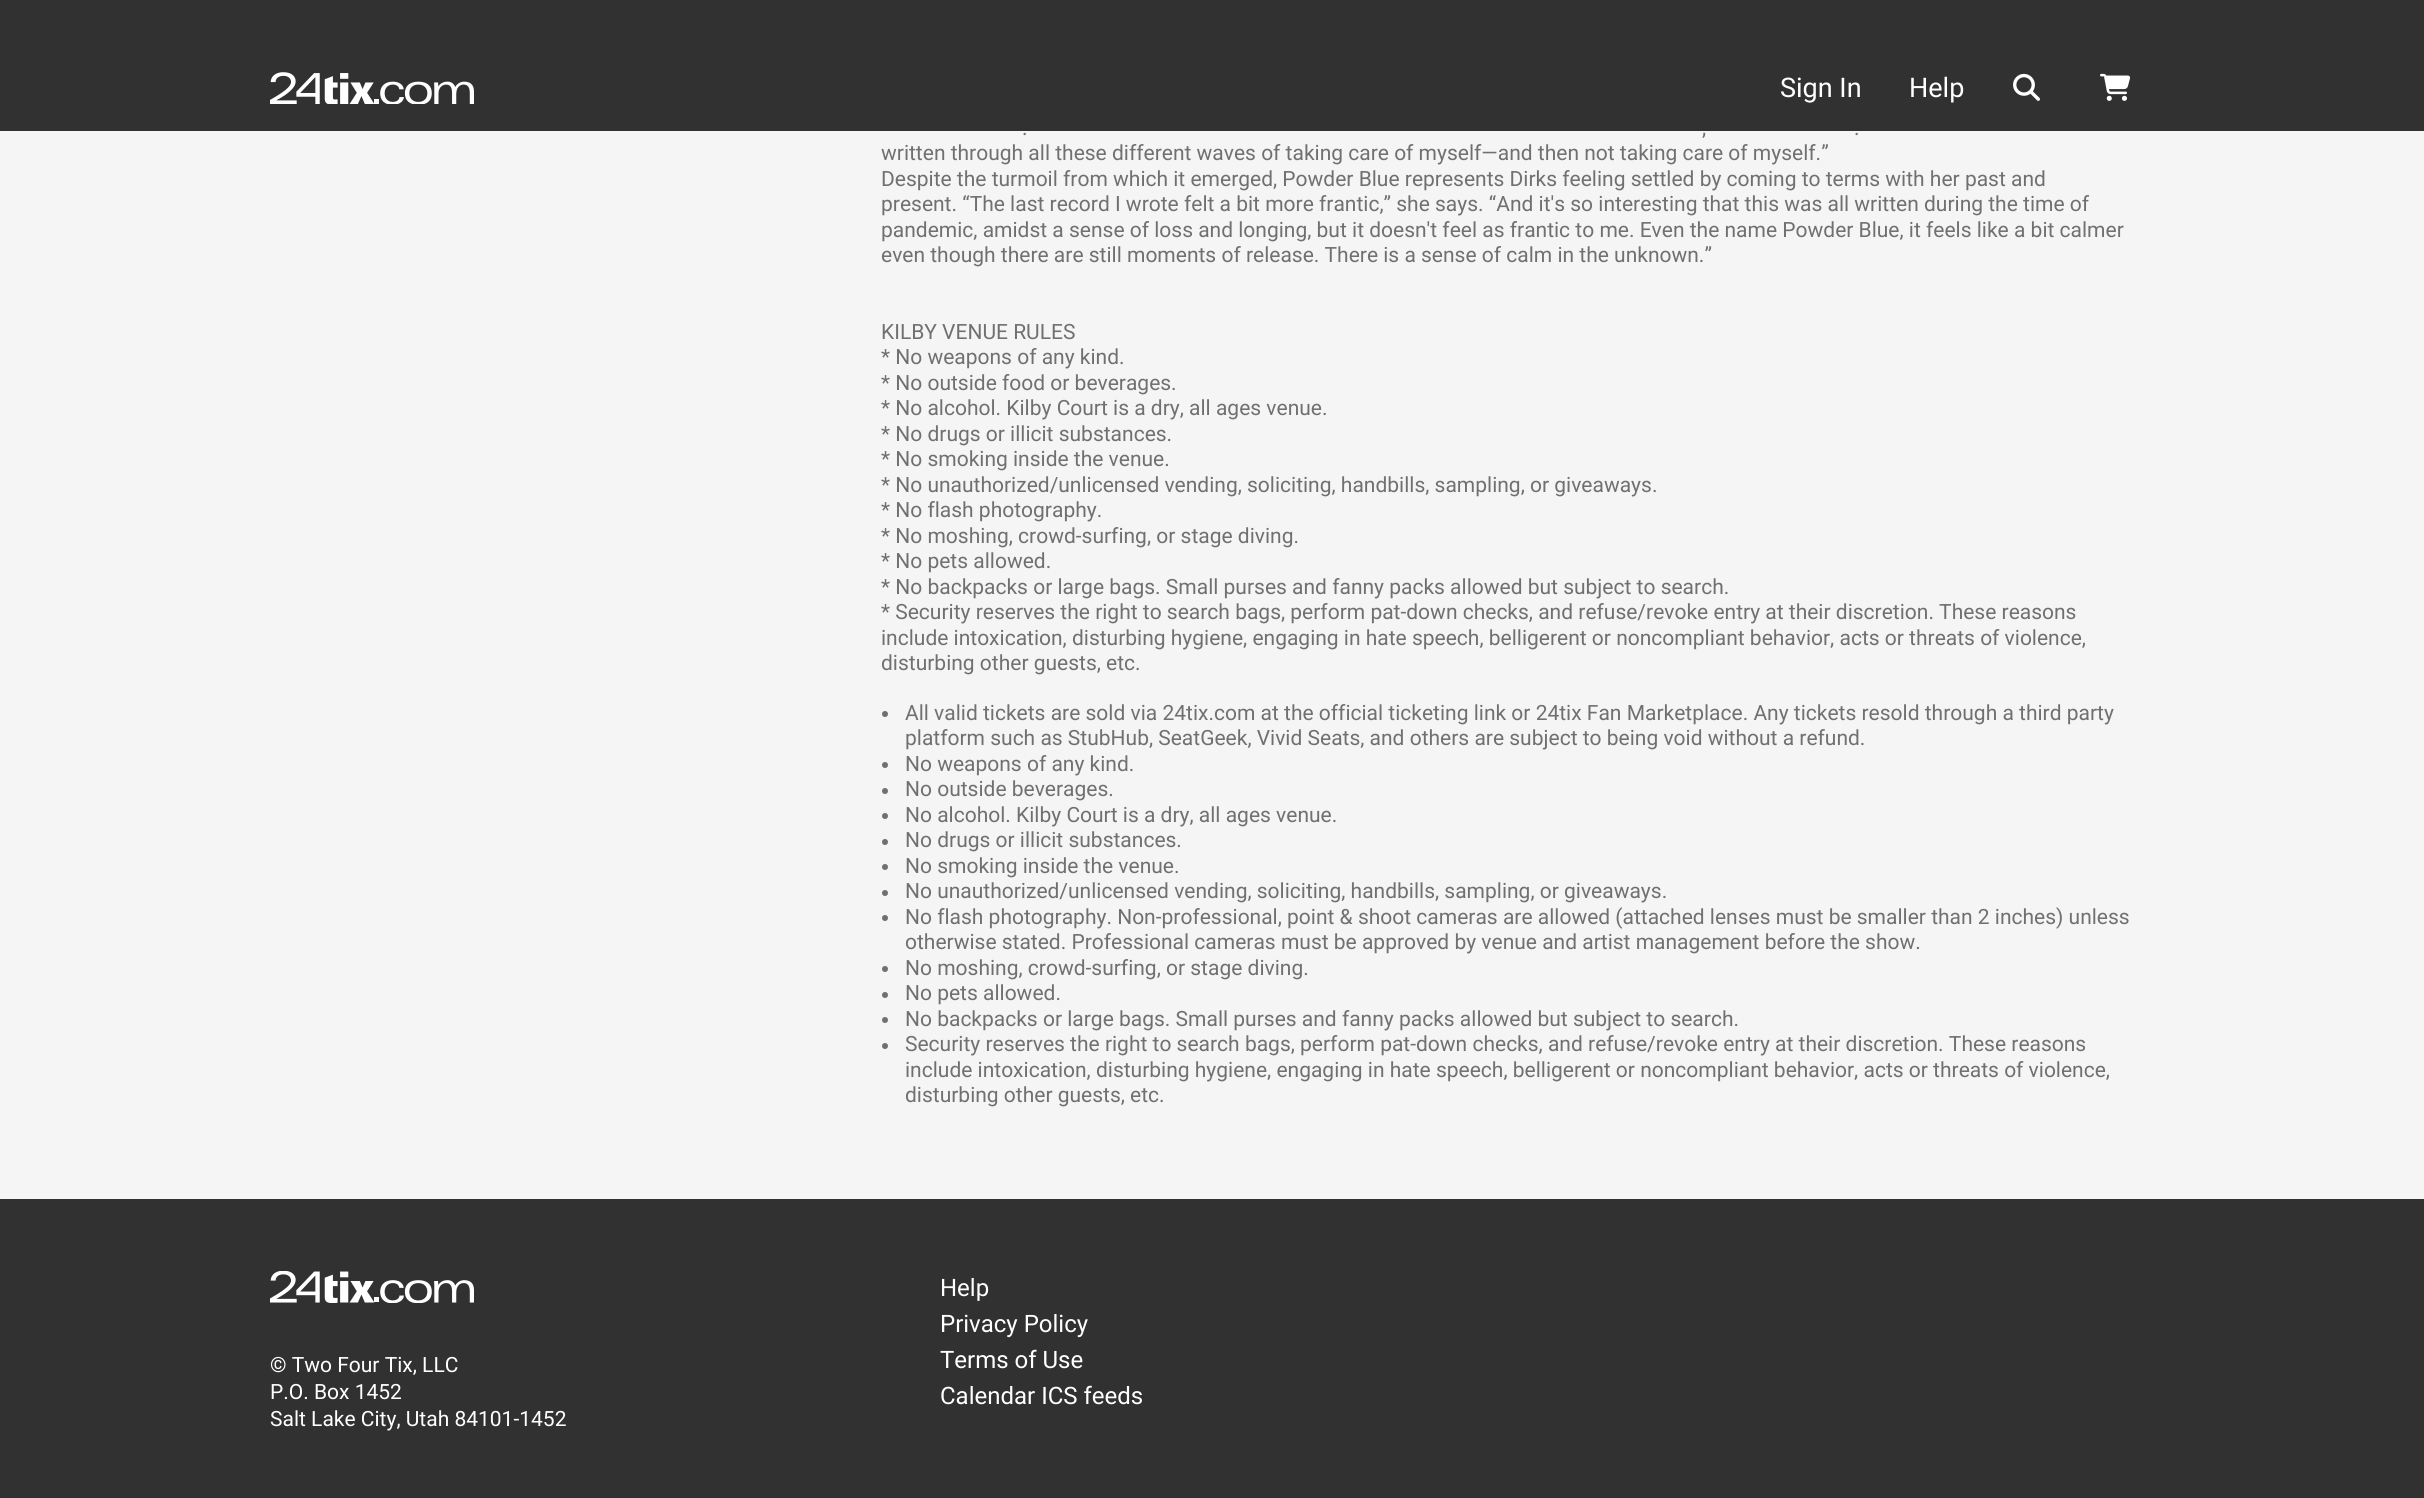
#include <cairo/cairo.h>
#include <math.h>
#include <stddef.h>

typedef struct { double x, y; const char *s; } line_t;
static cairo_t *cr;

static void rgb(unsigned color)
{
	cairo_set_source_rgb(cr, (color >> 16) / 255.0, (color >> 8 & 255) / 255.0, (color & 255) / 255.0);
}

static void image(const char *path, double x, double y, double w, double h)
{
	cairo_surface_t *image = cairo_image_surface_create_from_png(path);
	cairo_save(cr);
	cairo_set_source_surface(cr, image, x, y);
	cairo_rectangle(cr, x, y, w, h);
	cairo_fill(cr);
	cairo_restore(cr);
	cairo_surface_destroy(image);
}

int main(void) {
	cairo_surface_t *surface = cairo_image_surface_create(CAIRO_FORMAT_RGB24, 2424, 1498);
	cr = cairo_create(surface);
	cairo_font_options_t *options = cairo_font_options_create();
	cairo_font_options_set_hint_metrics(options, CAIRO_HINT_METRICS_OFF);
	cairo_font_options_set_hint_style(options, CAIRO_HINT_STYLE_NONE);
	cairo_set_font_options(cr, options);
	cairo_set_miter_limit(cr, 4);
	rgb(0xf5f5f5);
	cairo_paint(cr);
	rgb(0x313131);
	cairo_rectangle(cr, 0, 0, 2424, 131);
	cairo_fill(cr);
	image("img/1.png", 270, 72, 204, 32);
	image("img/2.png", 2013, 73, 27, 28);
	image("img/3.png", 2100, 73, 31, 28);
	rgb(0x707070);
	cairo_arc(cr, 885, 714, 3, 0, 2 * M_PI);
	cairo_fill(cr);
	cairo_arc(cr, 885, 765, 3, 0, 2 * M_PI);
	cairo_fill(cr);
	cairo_arc(cr, 885, 791, 3, 0, 2 * M_PI);
	cairo_fill(cr);
	cairo_arc(cr, 885, 816, 3, 0, 2 * M_PI);
	cairo_fill(cr);
	cairo_arc(cr, 885, 842, 3, 0, 2 * M_PI);
	cairo_fill(cr);
	cairo_arc(cr, 885, 867, 3, 0, 2 * M_PI);
	cairo_fill(cr);
	cairo_arc(cr, 885, 893, 3, 0, 2 * M_PI);
	cairo_fill(cr);
	cairo_arc(cr, 885, 918, 3, 0, 2 * M_PI);
	cairo_fill(cr);
	cairo_arc(cr, 885, 969, 3, 0, 2 * M_PI);
	cairo_fill(cr);
	cairo_arc(cr, 885, 995, 3, 0, 2 * M_PI);
	cairo_fill(cr);
	cairo_arc(cr, 885, 1020, 3, 0, 2 * M_PI);
	cairo_fill(cr);
	cairo_arc(cr, 885, 1046, 3, 0, 2 * M_PI);
	cairo_fill(cr);
	rgb(0x313131);
	cairo_rectangle(cr, 0, 1199, 2424, 299);
	cairo_fill(cr);
	image("img/4.png", 270, 1271, 204, 32);
	cairo_select_font_face(cr, "Roboto", CAIRO_FONT_SLANT_NORMAL, CAIRO_FONT_WEIGHT_NORMAL);
	cairo_set_font_size(cr, 27);
	rgb(0xffffff);
	cairo_move_to(cr, 1780, 97);
	cairo_show_text(cr, "Sign In");
	cairo_move_to(cr, 1909, 97);
	cairo_show_text(cr, "Help");
	cairo_set_font_size(cr, 21);
	rgb(0x707070);
	{
		static const line_t items[] = {
			{1022, 135, "."},
			{1702, 135, ","},
			{1854, 135, "."},
			{881, 160, "written through all these different waves of taking care of myself—and then not taking care of myself.”"},
			{881, 186, "Despite the turmoil from which it emerged, Powder Blue represents Dirks feeling settled by coming to terms with her past and"},
			{881, 211, "present. “The last record I wrote felt a bit more frantic,” she says. “And it's so interesting that this was all written during the time of"},
			{881, 237, "pandemic, amidst a sense of loss and longing, but it doesn't feel as frantic to me. Even the name Powder Blue, it feels like a bit calmer"},
			{881, 262, "even though there are still moments of release. There is a sense of calm in the unknown.”"},
			{881, 339, "KILBY VENUE RULES"},
			{881, 364, "* No weapons of any kind."},
			{881, 390, "* No outside food or beverages."},
			{881, 415, "* No alcohol. Kilby Court is a dry, all ages venue."},
			{881, 441, "* No drugs or illicit substances."},
			{881, 466, "* No smoking inside the venue."},
			{881, 492, "* No unauthorized/unlicensed vending, soliciting, handbills, sampling, or giveaways."},
			{881, 517, "* No flash photography."},
			{881, 543, "* No moshing, crowd-surfing, or stage diving."},
			{881, 568, "* No pets allowed."},
			{881, 594, "* No backpacks or large bags. Small purses and fanny packs allowed but subject to search."},
			{881, 619, "* Security reserves the right to search bags, perform pat-down checks, and refuse/revoke entry at their discretion. These reasons"},
			{881, 645, "include intoxication, disturbing hygiene, engaging in hate speech, belligerent or noncompliant behavior, acts or threats of violence,"},
			{881, 670, "disturbing other guests, etc."},
			{905, 720, "All valid tickets are sold via 24tix.com at the official ticketing link or 24tix Fan Marketplace. Any tickets resold through a third party"},
			{905, 745, "platform such as StubHub, SeatGeek, Vivid Seats, and others are subject to being void without a refund."},
			{905, 771, "No weapons of any kind."},
			{905, 796, "No outside beverages."},
			{905, 822, "No alcohol. Kilby Court is a dry, all ages venue."},
			{905, 847, "No drugs or illicit substances."},
			{905, 873, "No smoking inside the venue."},
			{905, 898, "No unauthorized/unlicensed vending, soliciting, handbills, sampling, or giveaways."},
			{905, 924, "No flash photography. Non-professional, point & shoot cameras are allowed (attached lenses must be smaller than 2 inches) unless"},
			{905, 949, "otherwise stated. Professional cameras must be approved by venue and artist management before the show."},
			{905, 975, "No moshing, crowd-surfing, or stage diving."},
			{905, 1000, "No pets allowed."},
			{905, 1026, "No backpacks or large bags. Small purses and fanny packs allowed but subject to search."},
			{905, 1051, "Security reserves the right to search bags, perform pat-down checks, and refuse/revoke entry at their discretion. These reasons"},
			{905, 1077, "include intoxication, disturbing hygiene, engaging in hate speech, belligerent or noncompliant behavior, acts or threats of violence,"},
			{905, 1102, "disturbing other guests, etc."},
		};
		for (size_t i = 0; i < sizeof items / sizeof *items; i++) {
			cairo_move_to(cr, items[i].x, items[i].y);
			cairo_show_text(cr, items[i].s);
		}
	}
	rgb(0xffffff);
	{
		static const line_t items[] = {
			{270, 1372, "© Two Four Tix, LLC"},
			{270, 1399, "P.O. Box 1452"},
			{270, 1426, "Salt Lake City, Utah 84101-1452"},
		};
		for (size_t i = 0; i < sizeof items / sizeof *items; i++) {
			cairo_move_to(cr, items[i].x, items[i].y);
			cairo_show_text(cr, items[i].s);
		}
	}
	cairo_set_font_size(cr, 24);
	{
		static const line_t items[] = {
			{940, 1296, "Help"},
			{940, 1332, "Privacy Policy"},
			{940, 1368, "Terms of Use"},
			{940, 1404, "Calendar ICS feeds"},
		};
		for (size_t i = 0; i < sizeof items / sizeof *items; i++) {
			cairo_move_to(cr, items[i].x, items[i].y);
			cairo_show_text(cr, items[i].s);
		}
	}
	cairo_surface_write_to_png(surface, "page.png");
	cairo_font_options_destroy(options);
	cairo_destroy(cr);
	cairo_surface_destroy(surface);
	return 0;
}
